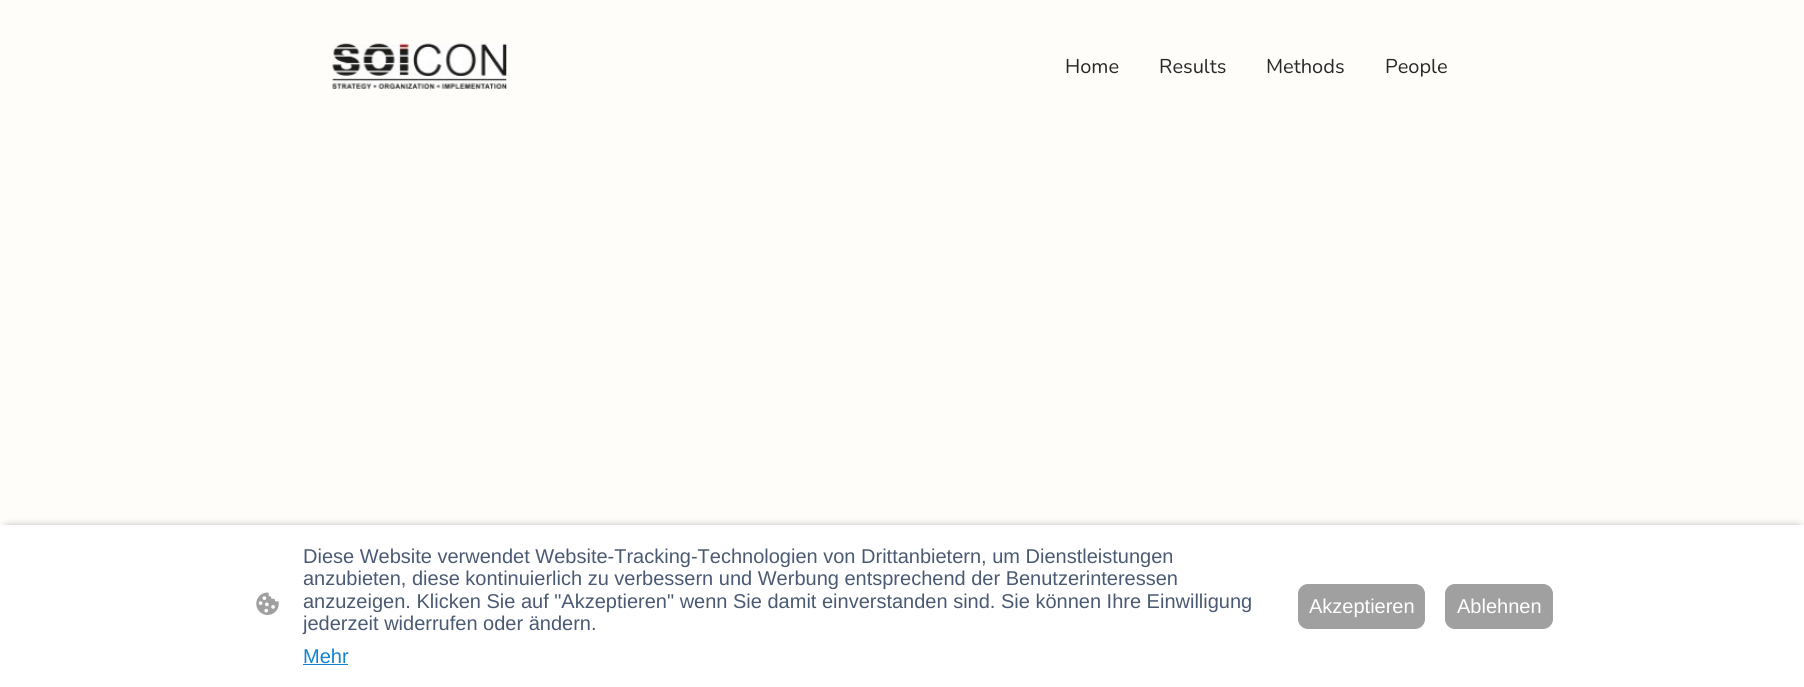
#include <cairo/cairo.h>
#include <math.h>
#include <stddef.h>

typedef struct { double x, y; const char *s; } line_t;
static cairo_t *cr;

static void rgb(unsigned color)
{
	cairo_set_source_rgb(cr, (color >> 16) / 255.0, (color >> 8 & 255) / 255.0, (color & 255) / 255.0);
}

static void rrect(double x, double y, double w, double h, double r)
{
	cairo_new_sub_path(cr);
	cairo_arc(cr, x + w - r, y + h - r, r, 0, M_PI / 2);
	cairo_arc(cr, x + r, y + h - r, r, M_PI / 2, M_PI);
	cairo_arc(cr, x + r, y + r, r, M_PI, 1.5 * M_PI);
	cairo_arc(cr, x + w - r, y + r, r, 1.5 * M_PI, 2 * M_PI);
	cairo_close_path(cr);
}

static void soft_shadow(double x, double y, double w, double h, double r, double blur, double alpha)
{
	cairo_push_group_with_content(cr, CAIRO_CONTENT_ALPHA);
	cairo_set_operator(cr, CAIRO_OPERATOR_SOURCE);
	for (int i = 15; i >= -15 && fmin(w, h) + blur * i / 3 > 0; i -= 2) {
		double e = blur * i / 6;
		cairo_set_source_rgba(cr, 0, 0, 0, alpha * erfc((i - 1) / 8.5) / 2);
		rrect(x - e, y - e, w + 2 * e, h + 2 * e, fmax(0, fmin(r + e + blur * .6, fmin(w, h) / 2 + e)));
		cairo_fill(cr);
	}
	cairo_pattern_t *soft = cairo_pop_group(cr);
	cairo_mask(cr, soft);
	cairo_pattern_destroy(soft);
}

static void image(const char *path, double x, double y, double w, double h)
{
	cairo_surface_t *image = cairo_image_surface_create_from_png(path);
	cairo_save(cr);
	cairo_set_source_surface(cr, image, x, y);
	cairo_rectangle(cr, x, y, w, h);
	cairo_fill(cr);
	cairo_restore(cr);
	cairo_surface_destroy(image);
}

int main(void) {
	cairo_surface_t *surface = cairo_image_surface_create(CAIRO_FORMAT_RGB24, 1804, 687);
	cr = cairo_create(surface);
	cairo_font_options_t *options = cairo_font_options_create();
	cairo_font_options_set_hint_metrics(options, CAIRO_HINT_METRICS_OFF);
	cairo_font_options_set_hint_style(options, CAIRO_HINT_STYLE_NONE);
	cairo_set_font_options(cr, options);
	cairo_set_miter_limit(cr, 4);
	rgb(0xfffdf9);
	cairo_paint(cr);
	image("img/1.png", 332, 43, 175, 46);
	rgb(0x000000);
	soft_shadow(8, 529, 1790, 147, 0, 5, 0.63);
	rgb(0xffffff);
	cairo_rectangle(cr, 0, 525, 1804, 162);
	cairo_fill(cr);
	image("img/2.png", 256, 592, 23, 23);
	rgb(0x1183d1);
	cairo_rectangle(cr, 303, 664, 45, 1);
	cairo_fill(cr);
	rgb(0xa0a0a0);
	rrect(1298.5, 584.5, 126, 44, 9.5);
	cairo_fill_preserve(cr);
	cairo_set_line_width(cr, 1);
	cairo_stroke(cr);
	rrect(1445.5, 584.5, 107, 44, 9.5);
	cairo_fill_preserve(cr);
	cairo_stroke(cr);
	cairo_select_font_face(cr, "Nunito", CAIRO_FONT_SLANT_NORMAL, CAIRO_FONT_WEIGHT_NORMAL);
	cairo_set_font_size(cr, 20);
	rgb(0x282828);
	{
		static const line_t items[] = {
			{1065, 73, "Home"},
			{1159, 73, "Results"},
			{1266, 73, "Methods"},
			{1385, 73, "People"},
		};
		for (size_t i = 0; i < sizeof items / sizeof *items; i++) {
			cairo_move_to(cr, items[i].x, items[i].y);
			cairo_show_text(cr, items[i].s);
		}
	}
	cairo_select_font_face(cr, "Liberation Sans", CAIRO_FONT_SLANT_NORMAL, CAIRO_FONT_WEIGHT_NORMAL);
	rgb(0x4a5a73);
	{
		static const line_t items[] = {
			{303, 563, "Diese Website verwendet Website-Tracking-Technologien von Drittanbietern, um Dienstleistungen"},
			{303, 585, "anzubieten, diese kontinuierlich zu verbessern und Werbung entsprechend der Benutzerinteressen"},
			{303, 608, "anzuzeigen. Klicken Sie auf \"Akzeptieren\" wenn Sie damit einverstanden sind. Sie können Ihre Einwilligung"},
			{303, 630, "jederzeit widerrufen oder ändern."},
		};
		for (size_t i = 0; i < sizeof items / sizeof *items; i++) {
			cairo_move_to(cr, items[i].x, items[i].y);
			cairo_show_text(cr, items[i].s);
		}
	}
	rgb(0x1183d1);
	cairo_move_to(cr, 303, 663);
	cairo_show_text(cr, "Mehr");
	rgb(0xffffff);
	cairo_move_to(cr, 1309, 613);
	cairo_show_text(cr, "Akzeptieren");
	cairo_move_to(cr, 1457, 613);
	cairo_show_text(cr, "Ablehnen");
	cairo_surface_write_to_png(surface, "page.png");
	cairo_font_options_destroy(options);
	cairo_destroy(cr);
	cairo_surface_destroy(surface);
	return 0;
}
